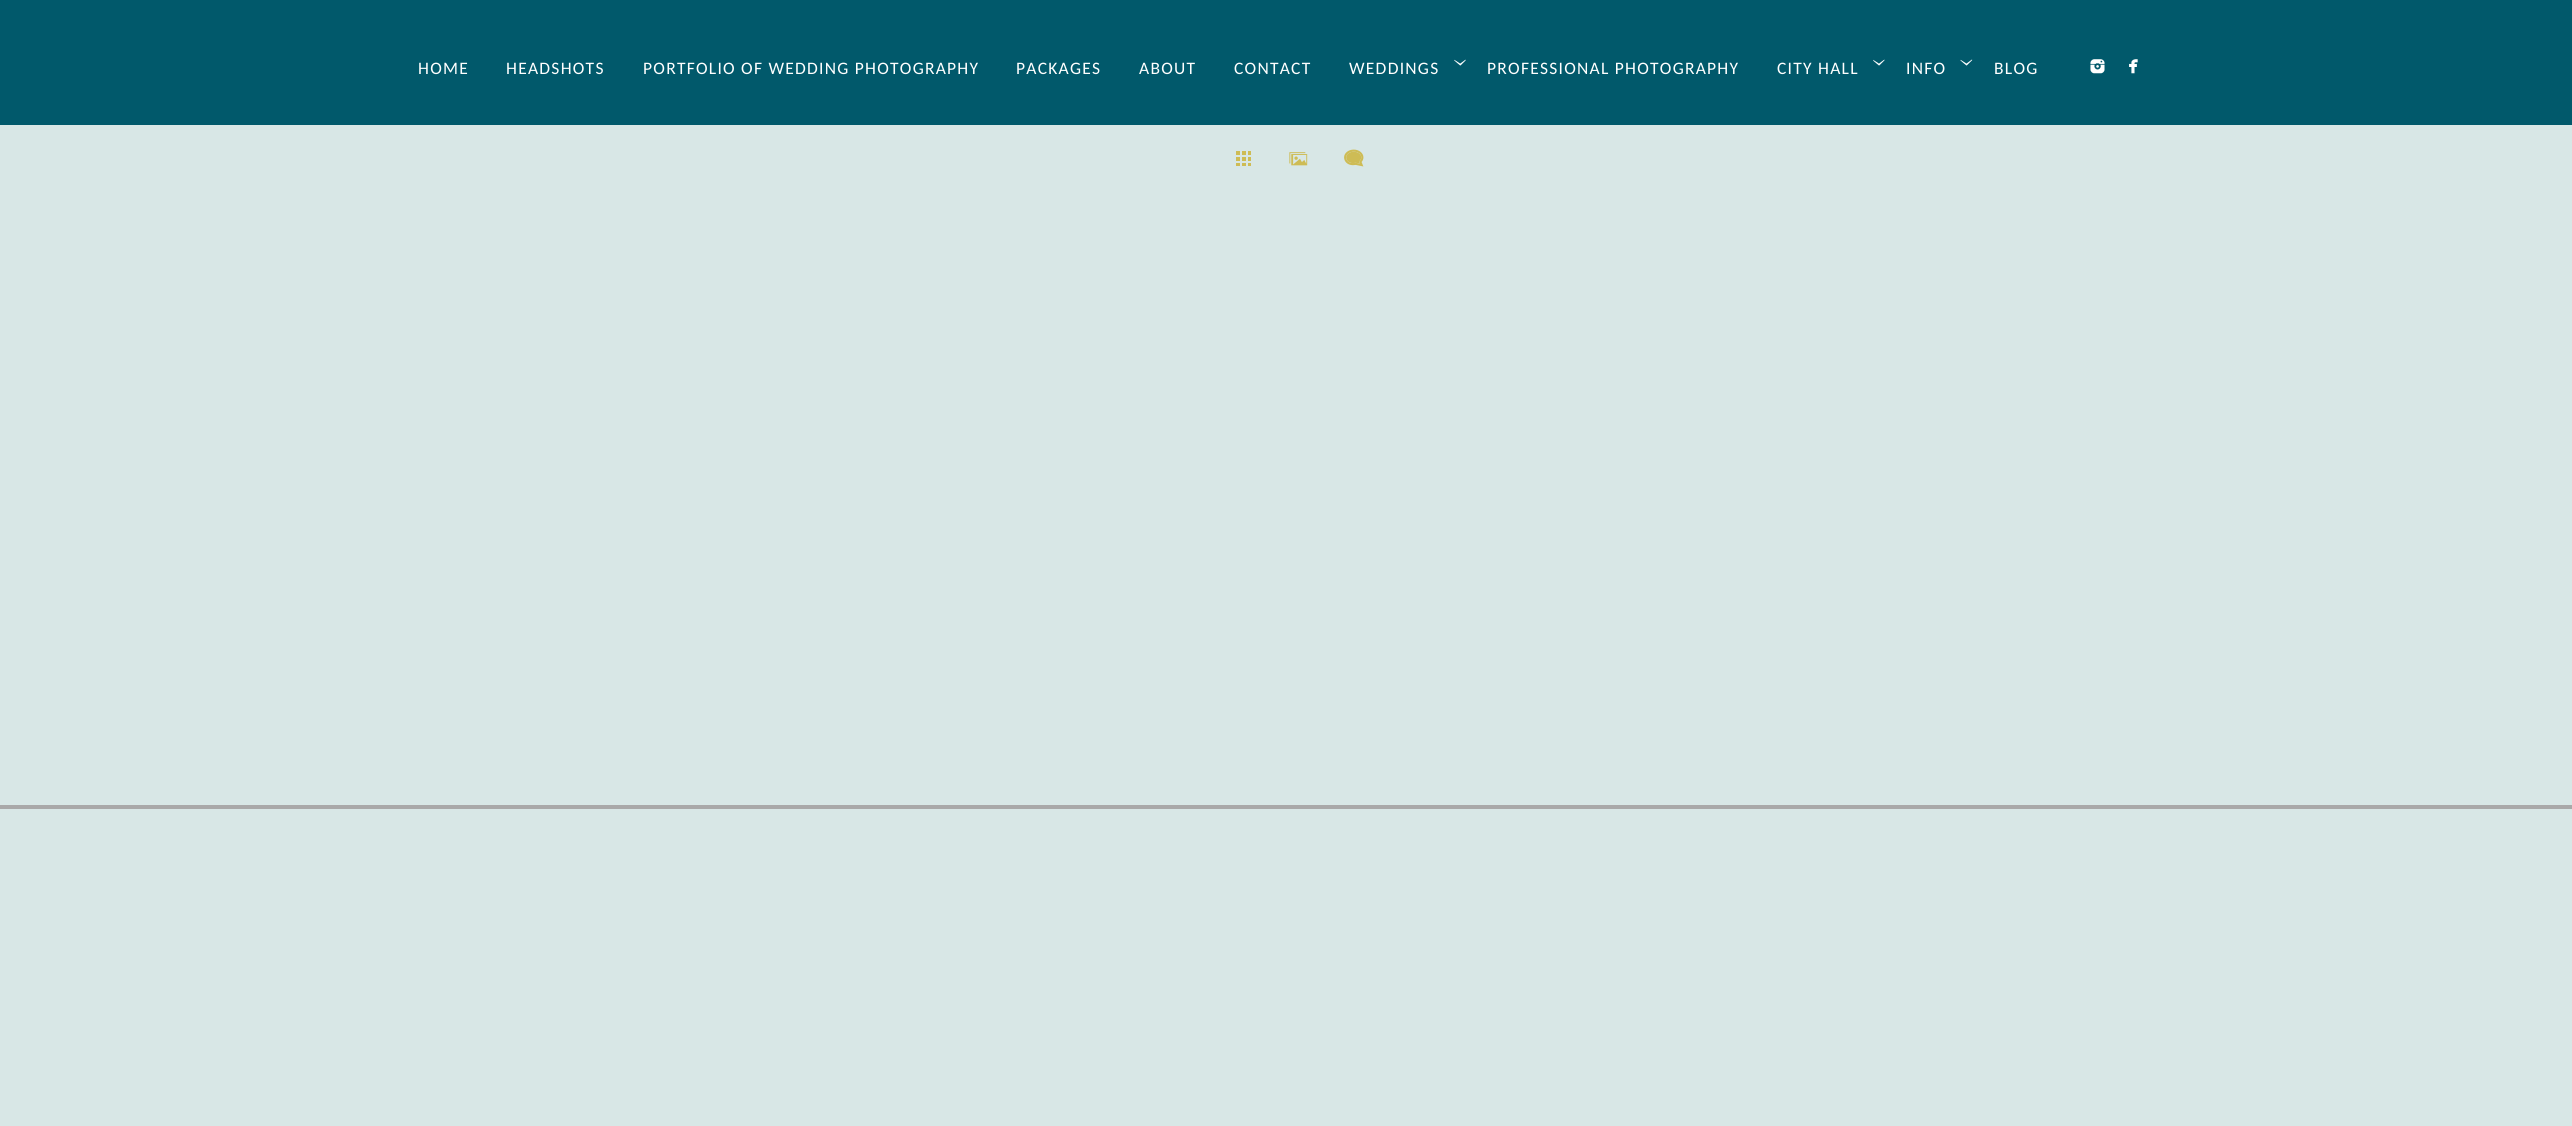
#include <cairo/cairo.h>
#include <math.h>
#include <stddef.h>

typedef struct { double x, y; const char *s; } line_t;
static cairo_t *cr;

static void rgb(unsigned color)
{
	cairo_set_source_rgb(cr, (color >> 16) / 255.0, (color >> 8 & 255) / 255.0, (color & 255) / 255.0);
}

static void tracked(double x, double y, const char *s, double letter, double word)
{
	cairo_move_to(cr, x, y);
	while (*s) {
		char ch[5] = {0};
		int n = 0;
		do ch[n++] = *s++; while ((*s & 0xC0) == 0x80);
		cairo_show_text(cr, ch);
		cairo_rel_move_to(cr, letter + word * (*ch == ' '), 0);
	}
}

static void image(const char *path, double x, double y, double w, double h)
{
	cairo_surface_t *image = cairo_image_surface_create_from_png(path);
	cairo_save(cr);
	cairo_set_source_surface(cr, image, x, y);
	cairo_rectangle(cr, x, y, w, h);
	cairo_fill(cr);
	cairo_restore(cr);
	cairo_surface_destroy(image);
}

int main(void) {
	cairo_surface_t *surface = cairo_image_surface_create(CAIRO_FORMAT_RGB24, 2572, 1126);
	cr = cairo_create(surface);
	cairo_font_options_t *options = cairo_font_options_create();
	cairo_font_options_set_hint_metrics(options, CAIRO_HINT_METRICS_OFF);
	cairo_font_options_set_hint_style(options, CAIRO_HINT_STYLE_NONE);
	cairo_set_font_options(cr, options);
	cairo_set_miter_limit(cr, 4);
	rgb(0xd8e7e6);
	cairo_paint(cr);
	rgb(0x01596b);
	cairo_rectangle(cr, 0, 0, 2572, 125);
	cairo_fill(cr);
	image("img/1.png", 1454, 59, 12, 7);
	image("img/2.png", 1873, 59, 12, 7);
	image("img/3.png", 1960, 59, 13, 7);
	image("img/4.png", 2090, 59, 15, 15);
	image("img/5.png", 2129, 59, 9, 15);
	image("img/6.png", 1236, 151, 15, 15);
	image("img/7.png", 1289, 152, 19, 14);
	image("img/8.png", 1344, 149, 20, 18);
	rgb(0xa9a9a9);
	cairo_rectangle(cr, 0, 805, 2572, 4);
	cairo_fill(cr);
	cairo_select_font_face(cr, "Carlito", CAIRO_FONT_SLANT_NORMAL, CAIRO_FONT_WEIGHT_NORMAL);
	cairo_set_font_size(cr, 17.5);
	rgb(0xffffff);
	{
		static const line_t items[] = {
			{418, 74, "HOME"},
			{506, 74, "HEADSHOTS"},
			{643, 74, "PORTFOLIO OF WEDDING PHOTOGRAPHY"},
			{1016, 74, "PACKAGES"},
			{1139, 74, "ABOUT"},
			{1234, 74, "CONTACT"},
			{1349, 74, "WEDDINGS"},
			{1487, 74, "PROFESSIONAL PHOTOGRAPHY"},
			{1777, 74, "CITY HALL"},
			{1906, 74, "INFO"},
			{1994, 74, "BLOG"},
		};
		for (size_t i = 0; i < sizeof items / sizeof *items; i++) {
			tracked(items[i].x, items[i].y, items[i].s, 1.25, 0);
		}
	}
	cairo_surface_write_to_png(surface, "page.png");
	cairo_font_options_destroy(options);
	cairo_destroy(cr);
	cairo_surface_destroy(surface);
	return 0;
}
